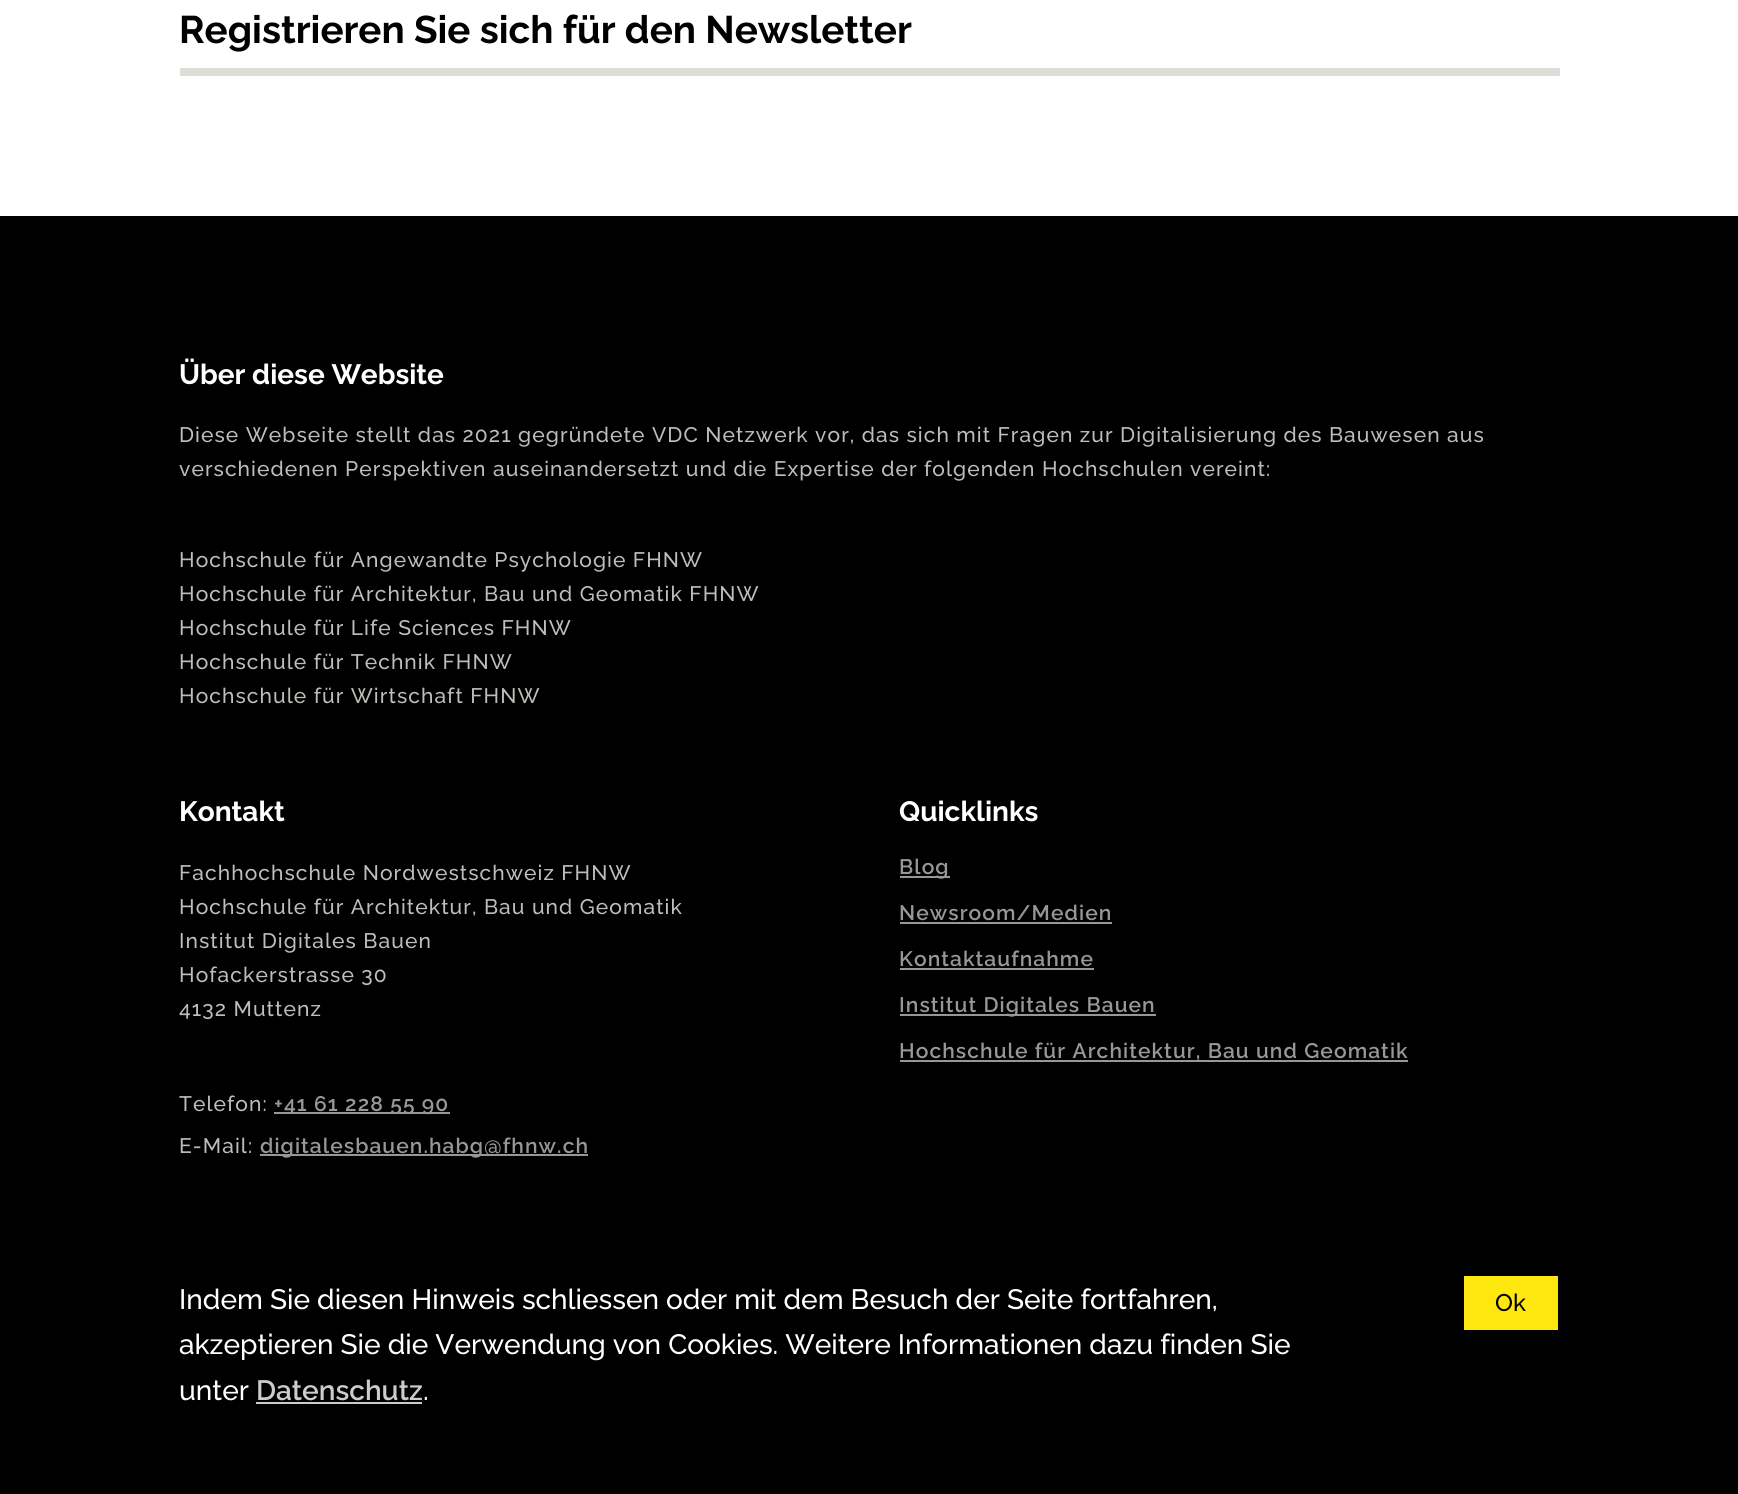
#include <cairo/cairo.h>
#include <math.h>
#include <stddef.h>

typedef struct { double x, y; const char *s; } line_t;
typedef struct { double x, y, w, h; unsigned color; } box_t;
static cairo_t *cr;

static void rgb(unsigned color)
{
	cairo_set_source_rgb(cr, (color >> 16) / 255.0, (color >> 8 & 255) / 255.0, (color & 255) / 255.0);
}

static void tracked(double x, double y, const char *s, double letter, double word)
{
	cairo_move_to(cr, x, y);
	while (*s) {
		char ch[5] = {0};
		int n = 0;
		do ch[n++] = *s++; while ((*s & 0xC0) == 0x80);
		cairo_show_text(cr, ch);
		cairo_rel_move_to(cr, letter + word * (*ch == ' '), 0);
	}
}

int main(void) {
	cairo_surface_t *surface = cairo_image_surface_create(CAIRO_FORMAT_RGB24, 1738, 1494);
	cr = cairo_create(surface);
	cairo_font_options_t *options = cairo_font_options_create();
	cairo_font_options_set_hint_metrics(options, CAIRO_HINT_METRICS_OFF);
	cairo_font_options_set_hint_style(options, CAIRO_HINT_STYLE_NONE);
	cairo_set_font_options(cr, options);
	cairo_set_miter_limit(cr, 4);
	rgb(0xffffff);
	cairo_paint(cr);
	{
		static const box_t items[] = {
			{180, 68, 1380, 8, 0xdeded9},
			{0, 216, 1738, 1278, 0x000000},
			{274, 1112, 176, 2, 0x989794},
			{260, 1154, 328, 2, 0x989794},
			{900, 876, 50, 2, 0x989794},
			{900, 922, 212, 2, 0x989794},
			{900, 968, 194, 2, 0x989794},
			{900, 1014, 256, 2, 0x989794},
			{900, 1060, 508, 2, 0x989794},
			{256, 1402, 166, 2, 0xcccccc},
			{1464, 1276, 94, 54, 0xfde70e},
		};
		for (size_t i = 0; i < sizeof items / sizeof *items; i++) {
			rgb(items[i].color);
			cairo_rectangle(cr, items[i].x, items[i].y, items[i].w, items[i].h);
			cairo_fill(cr);
		}
	}
	cairo_select_font_face(cr, "Raleway", CAIRO_FONT_SLANT_NORMAL, CAIRO_FONT_WEIGHT_BOLD);
	cairo_set_font_size(cr, 38.5);
	rgb(0x000000);
	cairo_move_to(cr, 179, 43);
	cairo_show_text(cr, "Registrieren Sie sich für den Newsletter");
	cairo_set_font_size(cr, 28);
	rgb(0xffffff);
	cairo_move_to(cr, 179, 384);
	cairo_show_text(cr, "Über diese Website");
	cairo_select_font_face(cr, "Raleway Medium", CAIRO_FONT_SLANT_NORMAL, CAIRO_FONT_WEIGHT_NORMAL);
	cairo_set_font_size(cr, 21);
	rgb(0xbebdb9);
	{
		static const line_t items[] = {
			{179, 442, "Diese Webseite stellt das 2021 gegründete VDC Netzwerk vor, das sich mit Fragen zur Digitalisierung des Bauwesen aus"},
			{179, 476, "verschiedenen Perspektiven auseinandersetzt und die Expertise der folgenden Hochschulen vereint:"},
			{179, 567, "Hochschule für Angewandte Psychologie FHNW"},
			{179, 601, "Hochschule für Architektur, Bau und Geomatik FHNW"},
			{179, 635, "Hochschule für Life Sciences FHNW"},
			{179, 669, "Hochschule für Technik FHNW"},
			{179, 703, "Hochschule für Wirtschaft FHNW"},
		};
		for (size_t i = 0; i < sizeof items / sizeof *items; i++) {
			tracked(items[i].x, items[i].y, items[i].s, 1.08, 0);
		}
	}
	cairo_select_font_face(cr, "Raleway", CAIRO_FONT_SLANT_NORMAL, CAIRO_FONT_WEIGHT_BOLD);
	cairo_set_font_size(cr, 28);
	rgb(0xffffff);
	cairo_move_to(cr, 179, 821);
	cairo_show_text(cr, "Kontakt");
	cairo_select_font_face(cr, "Raleway Medium", CAIRO_FONT_SLANT_NORMAL, CAIRO_FONT_WEIGHT_NORMAL);
	cairo_set_font_size(cr, 21);
	rgb(0xbebdb9);
	{
		static const line_t items[] = {
			{179, 880, "Fachhochschule Nordwestschweiz FHNW"},
			{179, 914, "Hochschule für Architektur, Bau und Geomatik"},
			{179, 948, "Institut Digitales Bauen"},
			{179, 982, "Hofackerstrasse 30"},
			{179, 1016, "4132 Muttenz"},
			{179, 1111, "Telefon:"},
		};
		for (size_t i = 0; i < sizeof items / sizeof *items; i++) {
			tracked(items[i].x, items[i].y, items[i].s, 1.08, 0);
		}
	}
	cairo_select_font_face(cr, "Raleway SemiBold", CAIRO_FONT_SLANT_NORMAL, CAIRO_FONT_WEIGHT_NORMAL);
	rgb(0x989794);
	tracked(274, 1111, "+41 61 228 55 90", 1.08, 0);
	cairo_select_font_face(cr, "Raleway Medium", CAIRO_FONT_SLANT_NORMAL, CAIRO_FONT_WEIGHT_NORMAL);
	rgb(0xbebdb9);
	tracked(179, 1153, "E-Mail:", 1.08, 0);
	cairo_select_font_face(cr, "Raleway SemiBold", CAIRO_FONT_SLANT_NORMAL, CAIRO_FONT_WEIGHT_NORMAL);
	rgb(0x989794);
	tracked(260, 1153, "digitalesbauen.habg@fhnw.ch", 1.08, 0);
	cairo_select_font_face(cr, "Raleway", CAIRO_FONT_SLANT_NORMAL, CAIRO_FONT_WEIGHT_BOLD);
	cairo_set_font_size(cr, 28);
	rgb(0xffffff);
	cairo_move_to(cr, 899, 821);
	cairo_show_text(cr, "Quicklinks");
	cairo_select_font_face(cr, "Raleway SemiBold", CAIRO_FONT_SLANT_NORMAL, CAIRO_FONT_WEIGHT_NORMAL);
	cairo_set_font_size(cr, 21);
	rgb(0x989794);
	{
		static const line_t items[] = {
			{899, 874, "Blog"},
			{899, 920, "Newsroom/Medien"},
			{899, 966, "Kontaktaufnahme"},
			{899, 1012, "Institut Digitales Bauen"},
			{899, 1058, "Hochschule für Architektur, Bau und Geomatik"},
		};
		for (size_t i = 0; i < sizeof items / sizeof *items; i++) {
			tracked(items[i].x, items[i].y, items[i].s, 1.08, 0);
		}
	}
	cairo_select_font_face(cr, "Raleway Medium", CAIRO_FONT_SLANT_NORMAL, CAIRO_FONT_WEIGHT_NORMAL);
	cairo_set_font_size(cr, 28);
	rgb(0xffffff);
	{
		static const line_t items[] = {
			{179, 1309, "Indem Sie diesen Hinweis schliessen oder mit dem Besuch der Seite fortfahren,"},
			{179, 1354, "akzeptieren Sie die Verwendung von Cookies. Weitere Informationen dazu finden Sie"},
			{179, 1400, "unter"},
		};
		for (size_t i = 0; i < sizeof items / sizeof *items; i++) {
			cairo_move_to(cr, items[i].x, items[i].y);
			cairo_show_text(cr, items[i].s);
		}
	}
	cairo_select_font_face(cr, "Raleway SemiBold", CAIRO_FONT_SLANT_NORMAL, CAIRO_FONT_WEIGHT_NORMAL);
	rgb(0xcccccc);
	cairo_move_to(cr, 256, 1400);
	cairo_show_text(cr, "Datenschutz");
	cairo_select_font_face(cr, "Raleway Medium", CAIRO_FONT_SLANT_NORMAL, CAIRO_FONT_WEIGHT_NORMAL);
	rgb(0xffffff);
	cairo_move_to(cr, 423, 1400);
	cairo_show_text(cr, ".");
	cairo_set_font_size(cr, 24);
	rgb(0x000000);
	cairo_move_to(cr, 1495, 1311);
	cairo_show_text(cr, "Ok");
	cairo_surface_write_to_png(surface, "page.png");
	cairo_font_options_destroy(options);
	cairo_destroy(cr);
	cairo_surface_destroy(surface);
	return 0;
}
